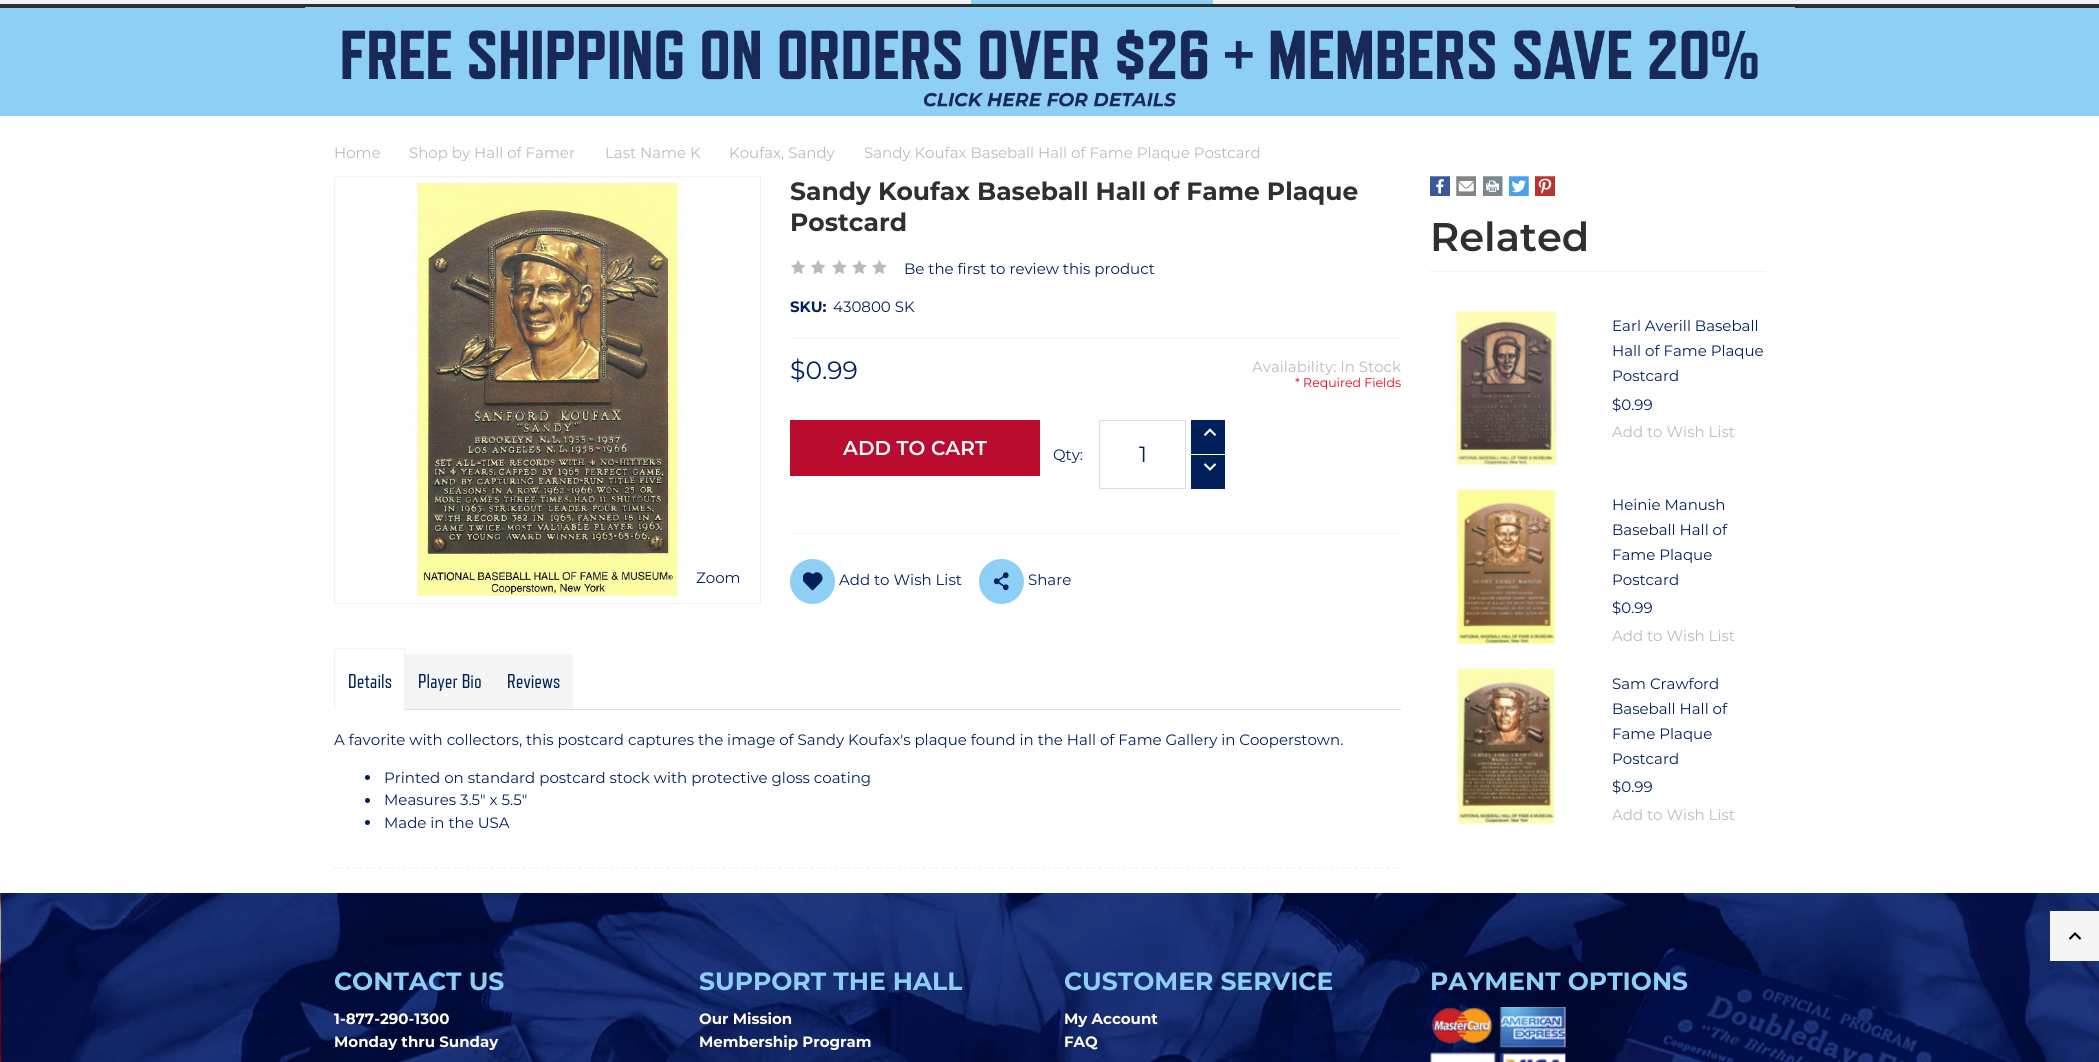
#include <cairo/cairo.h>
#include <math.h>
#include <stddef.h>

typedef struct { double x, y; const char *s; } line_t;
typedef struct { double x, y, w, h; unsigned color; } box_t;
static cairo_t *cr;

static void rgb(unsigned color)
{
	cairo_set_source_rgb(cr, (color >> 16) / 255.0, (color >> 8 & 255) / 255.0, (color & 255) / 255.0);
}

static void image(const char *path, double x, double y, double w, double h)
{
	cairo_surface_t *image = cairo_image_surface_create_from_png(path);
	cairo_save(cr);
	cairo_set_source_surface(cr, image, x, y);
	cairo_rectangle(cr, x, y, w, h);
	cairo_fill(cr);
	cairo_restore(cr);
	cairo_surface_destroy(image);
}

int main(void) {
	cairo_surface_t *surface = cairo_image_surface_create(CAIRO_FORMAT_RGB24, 2099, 1062);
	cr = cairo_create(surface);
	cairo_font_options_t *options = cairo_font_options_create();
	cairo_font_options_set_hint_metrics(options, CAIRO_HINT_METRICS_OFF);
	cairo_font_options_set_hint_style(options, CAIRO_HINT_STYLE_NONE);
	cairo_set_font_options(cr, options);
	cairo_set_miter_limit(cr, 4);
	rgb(0xffffff);
	cairo_paint(cr);
	{
		static const box_t items[] = {
			{0, 0, 2099, 4, 0xf1f2f2},
			{971, 0, 242, 4, 0x8dcff5},
			{0, 8, 2099, 108, 0x8dcff5},
			{0, 4, 2099, 4, 0x2f2f2f},
		};
		for (size_t i = 0; i < sizeof items / sizeof *items; i++) {
			rgb(items[i].color);
			cairo_rectangle(cr, items[i].x, items[i].y, items[i].w, items[i].h);
			cairo_fill(cr);
		}
	}
	image("img/1.png", 305, 7, 1490, 100);
	cairo_rectangle(cr, 334.5, 176.5, 426, 427);
	rgb(0xf1f2f2);
	cairo_set_line_width(cr, 1);
	cairo_stroke(cr);
	image("img/2.png", 413, 183, 269, 413);
	rgb(0xf5f5f5);
	cairo_rectangle(cr, 790, 338, 611, 1);
	cairo_fill(cr);
	image("img/3.png", 791, 259, 15, 16);
	image("img/3.png", 811, 259, 15, 16);
	image("img/4.png", 832, 259, 15, 16);
	image("img/4.png", 852, 259, 15, 16);
	image("img/4.png", 872, 259, 15, 16);
	rgb(0xf1f2f2);
	cairo_rectangle(cr, 790, 533, 611, 1);
	cairo_fill(cr);
	rgb(0xba0c2f);
	cairo_rectangle(cr, 790, 420, 250, 56);
	cairo_fill(cr);
	cairo_rectangle(cr, 1099.5, 420.5, 86, 68);
	rgb(0xdddddd);
	cairo_stroke(cr);
	rgb(0x00205b);
	cairo_rectangle(cr, 1191, 420, 34, 34);
	cairo_fill(cr);
	image("img/5.png", 1203, 428, 14, 8);
	cairo_rectangle(cr, 1191, 455, 34, 34);
	cairo_fill(cr);
	image("img/6.png", 1203, 463, 14, 8);
	rgb(0x8dcff5);
	cairo_arc(cr, 812.5, 581.5, 22.5, 0, 2 * M_PI);
	cairo_fill(cr);
	image("img/7.png", 803, 572, 20, 19);
	cairo_arc(cr, 1001.5, 581.5, 22.5, 0, 2 * M_PI);
	cairo_fill(cr);
	image("img/8.png", 994, 572, 15, 19);
	rgb(0xdddddd);
	cairo_rectangle(cr, 405, 709, 996, 1);
	cairo_fill(cr);
	rgb(0xf1f2f2);
	cairo_rectangle(cr, 334, 648, 71, 1);
	cairo_fill(cr);
	cairo_new_path(cr);
	cairo_move_to(cr, 405, 648);
	cairo_line_to(cr, 405, 710);
	cairo_line_to(cr, 404, 709);
	cairo_line_to(cr, 404, 649);
	cairo_close_path(cr);
	cairo_fill(cr);
	cairo_new_path(cr);
	cairo_move_to(cr, 334, 710);
	cairo_line_to(cr, 334, 648);
	cairo_line_to(cr, 335, 649);
	cairo_line_to(cr, 335, 709);
	cairo_close_path(cr);
	cairo_fill(cr);
	rgb(0xf5f5f5);
	cairo_rectangle(cr, 405, 654, 168, 55);
	cairo_fill(cr);
	cairo_new_path(cr);
	cairo_move_to(cr, 334, 868);
	cairo_line_to(cr, 1401, 868);
	rgb(0xf1f2f2);
	cairo_set_line_width(cr, 1.2);
	cairo_set_dash(cr, (double[]){3.75, 2.51}, 2, 0);
	cairo_stroke(cr);
	rgb(0x00205b);
	cairo_arc(cr, 367.5, 777.5, 2.5, 0, 2 * M_PI);
	cairo_fill(cr);
	cairo_arc(cr, 367.5, 800.5, 2.5, 0, 2 * M_PI);
	cairo_fill(cr);
	cairo_arc(cr, 367.5, 822.5, 2.5, 0, 2 * M_PI);
	cairo_fill(cr);
	image("img/9.png", 1430, 176, 20, 20);
	image("img/10.png", 1456, 176, 20, 20);
	image("img/11.png", 1483, 176, 20, 20);
	image("img/12.png", 1509, 176, 20, 20);
	image("img/13.png", 1535, 176, 20, 20);
	rgb(0xf1f2f2);
	cairo_rectangle(cr, 1430, 271, 336, 1);
	cairo_fill(cr);
	image("img/14.png", 1452, 311, 107, 155);
	image("img/15.png", 1456, 489, 103, 156);
	image("img/16.png", 1455, 668, 104, 156);
	image("img/17.png", 0, 893, 2099, 169);
	rgb(0xf5f5f5);
	cairo_rectangle(cr, 2050, 911, 49, 50);
	cairo_fill(cr);
	image("img/18.png", 2068, 932, 14, 8);
	image("img/19.png", 1429, 1007, 137, 55);
	cairo_select_font_face(cr, "Montserrat", CAIRO_FONT_SLANT_NORMAL, CAIRO_FONT_WEIGHT_NORMAL);
	cairo_set_font_size(cr, 15);
	rgb(0xbbbbbb);
	{
		static const line_t items[] = {
			{334, 158, "Home"},
			{409, 158, "Shop by Hall of Famer"},
			{605, 158, "Last Name K"},
			{729, 158, "Koufax, Sandy"},
			{864, 158, "Sandy Koufax Baseball Hall of Fame Plaque Postcard"},
		};
		for (size_t i = 0; i < sizeof items / sizeof *items; i++) {
			cairo_move_to(cr, items[i].x, items[i].y);
			cairo_show_text(cr, items[i].s);
		}
	}
	rgb(0x00205b);
	cairo_move_to(cr, 696, 583);
	cairo_show_text(cr, "Zoom");
	cairo_select_font_face(cr, "Montserrat", CAIRO_FONT_SLANT_NORMAL, CAIRO_FONT_WEIGHT_BOLD);
	cairo_set_font_size(cr, 25);
	rgb(0x2f2f2f);
	cairo_move_to(cr, 790, 200);
	cairo_show_text(cr, "Sandy Koufax Baseball Hall of Fame Plaque");
	cairo_move_to(cr, 790, 231);
	cairo_show_text(cr, "Postcard");
	cairo_select_font_face(cr, "Montserrat", CAIRO_FONT_SLANT_NORMAL, CAIRO_FONT_WEIGHT_NORMAL);
	cairo_set_font_size(cr, 15);
	rgb(0x00205b);
	cairo_move_to(cr, 904, 274);
	cairo_show_text(cr, "Be the first to review this product");
	cairo_select_font_face(cr, "Montserrat", CAIRO_FONT_SLANT_NORMAL, CAIRO_FONT_WEIGHT_BOLD);
	cairo_move_to(cr, 790, 312);
	cairo_show_text(cr, "SKU:");
	cairo_select_font_face(cr, "Montserrat", CAIRO_FONT_SLANT_NORMAL, CAIRO_FONT_WEIGHT_NORMAL);
	cairo_move_to(cr, 833, 312);
	cairo_show_text(cr, "430800 SK");
	cairo_set_font_size(cr, 25);
	cairo_move_to(cr, 790, 379);
	cairo_show_text(cr, "$0.99");
	cairo_set_font_size(cr, 15);
	rgb(0xbbbbbb);
	cairo_move_to(cr, 1252, 372);
	cairo_show_text(cr, "Availability: In Stock");
	cairo_set_font_size(cr, 12.5);
	rgb(0xee001c);
	cairo_move_to(cr, 1295, 387);
	cairo_show_text(cr, "* Required Fields");
	cairo_select_font_face(cr, "Montserrat SemiBold", CAIRO_FONT_SLANT_NORMAL, CAIRO_FONT_WEIGHT_NORMAL);
	cairo_set_font_size(cr, 20);
	rgb(0xffffff);
	cairo_move_to(cr, 843, 455);
	cairo_show_text(cr, "ADD TO CART");
	cairo_select_font_face(cr, "Montserrat", CAIRO_FONT_SLANT_NORMAL, CAIRO_FONT_WEIGHT_NORMAL);
	cairo_set_font_size(cr, 15);
	rgb(0x00205b);
	cairo_move_to(cr, 1053, 460);
	cairo_show_text(cr, "Qty:");
	cairo_set_font_size(cr, 22);
	cairo_move_to(cr, 1139, 462);
	cairo_show_text(cr, "1");
	cairo_set_font_size(cr, 15);
	cairo_move_to(cr, 839, 585);
	cairo_show_text(cr, "Add to Wish List");
	cairo_move_to(cr, 1028, 585);
	cairo_show_text(cr, "Share");
	cairo_select_font_face(cr, "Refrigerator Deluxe", CAIRO_FONT_SLANT_NORMAL, CAIRO_FONT_WEIGHT_NORMAL);
	cairo_set_font_size(cr, 20);
	{
		static const line_t items[] = {
			{348, 688, "Details"},
			{418, 688, "Player Bio"},
			{507, 688, "Reviews"},
		};
		for (size_t i = 0; i < sizeof items / sizeof *items; i++) {
			cairo_move_to(cr, items[i].x, items[i].y);
			cairo_show_text(cr, items[i].s);
		}
	}
	cairo_select_font_face(cr, "Montserrat", CAIRO_FONT_SLANT_NORMAL, CAIRO_FONT_WEIGHT_NORMAL);
	cairo_set_font_size(cr, 15);
	{
		static const line_t items[] = {
			{334, 745, "A favorite with collectors, this postcard captures the image of Sandy Koufax's plaque found in the Hall of Fame Gallery in Cooperstown."},
			{384, 783, "Printed on standard postcard stock with protective gloss coating"},
			{384, 805, "Measures 3.5\" x 5.5\""},
			{384, 828, "Made in the USA"},
		};
		for (size_t i = 0; i < sizeof items / sizeof *items; i++) {
			cairo_move_to(cr, items[i].x, items[i].y);
			cairo_show_text(cr, items[i].s);
		}
	}
	cairo_select_font_face(cr, "Montserrat SemiBold", CAIRO_FONT_SLANT_NORMAL, CAIRO_FONT_WEIGHT_NORMAL);
	cairo_set_font_size(cr, 40);
	rgb(0x2f2f2f);
	cairo_move_to(cr, 1430, 251);
	cairo_show_text(cr, "Related");
	cairo_select_font_face(cr, "Montserrat", CAIRO_FONT_SLANT_NORMAL, CAIRO_FONT_WEIGHT_NORMAL);
	cairo_set_font_size(cr, 15);
	rgb(0x00205b);
	{
		static const line_t items[] = {
			{1612, 331, "Earl Averill Baseball"},
			{1612, 356, "Hall of Fame Plaque"},
			{1612, 381, "Postcard"},
			{1612, 410, "$0.99"},
		};
		for (size_t i = 0; i < sizeof items / sizeof *items; i++) {
			cairo_move_to(cr, items[i].x, items[i].y);
			cairo_show_text(cr, items[i].s);
		}
	}
	rgb(0xbbbbbb);
	cairo_move_to(cr, 1612, 437);
	cairo_show_text(cr, "Add to Wish List");
	rgb(0x00205b);
	{
		static const line_t items[] = {
			{1612, 510, "Heinie Manush"},
			{1612, 535, "Baseball Hall of"},
			{1612, 560, "Fame Plaque"},
			{1612, 585, "Postcard"},
			{1612, 613, "$0.99"},
		};
		for (size_t i = 0; i < sizeof items / sizeof *items; i++) {
			cairo_move_to(cr, items[i].x, items[i].y);
			cairo_show_text(cr, items[i].s);
		}
	}
	rgb(0xbbbbbb);
	cairo_move_to(cr, 1612, 641);
	cairo_show_text(cr, "Add to Wish List");
	rgb(0x00205b);
	{
		static const line_t items[] = {
			{1612, 689, "Sam Crawford"},
			{1612, 714, "Baseball Hall of"},
			{1612, 739, "Fame Plaque"},
			{1612, 764, "Postcard"},
			{1612, 792, "$0.99"},
		};
		for (size_t i = 0; i < sizeof items / sizeof *items; i++) {
			cairo_move_to(cr, items[i].x, items[i].y);
			cairo_show_text(cr, items[i].s);
		}
	}
	rgb(0xbbbbbb);
	cairo_move_to(cr, 1612, 820);
	cairo_show_text(cr, "Add to Wish List");
	cairo_select_font_face(cr, "Montserrat", CAIRO_FONT_SLANT_NORMAL, CAIRO_FONT_WEIGHT_BOLD);
	cairo_set_font_size(cr, 25);
	rgb(0x8dcff5);
	cairo_move_to(cr, 334, 990);
	cairo_show_text(cr, "CONTACT US");
	cairo_set_font_size(cr, 15);
	rgb(0xfffdee);
	cairo_move_to(cr, 334, 1024);
	cairo_show_text(cr, "1-877-290-1300");
	cairo_move_to(cr, 334, 1047);
	cairo_show_text(cr, "Monday thru Sunday");
	cairo_set_font_size(cr, 25);
	rgb(0x8dcff5);
	cairo_move_to(cr, 699, 990);
	cairo_show_text(cr, "SUPPORT THE HALL");
	cairo_set_font_size(cr, 15);
	rgb(0xfffdee);
	cairo_move_to(cr, 699, 1024);
	cairo_show_text(cr, "Our Mission");
	cairo_move_to(cr, 699, 1047);
	cairo_show_text(cr, "Membership Program");
	cairo_set_font_size(cr, 25);
	rgb(0x8dcff5);
	cairo_move_to(cr, 1064, 990);
	cairo_show_text(cr, "CUSTOMER SERVICE");
	cairo_set_font_size(cr, 15);
	rgb(0xfffdee);
	cairo_move_to(cr, 1064, 1024);
	cairo_show_text(cr, "My Account");
	cairo_move_to(cr, 1064, 1047);
	cairo_show_text(cr, "FAQ");
	cairo_set_font_size(cr, 25);
	rgb(0x8dcff5);
	cairo_move_to(cr, 1430, 990);
	cairo_show_text(cr, "PAYMENT OPTIONS");
	cairo_surface_write_to_png(surface, "page.png");
	cairo_font_options_destroy(options);
	cairo_destroy(cr);
	cairo_surface_destroy(surface);
	return 0;
}
